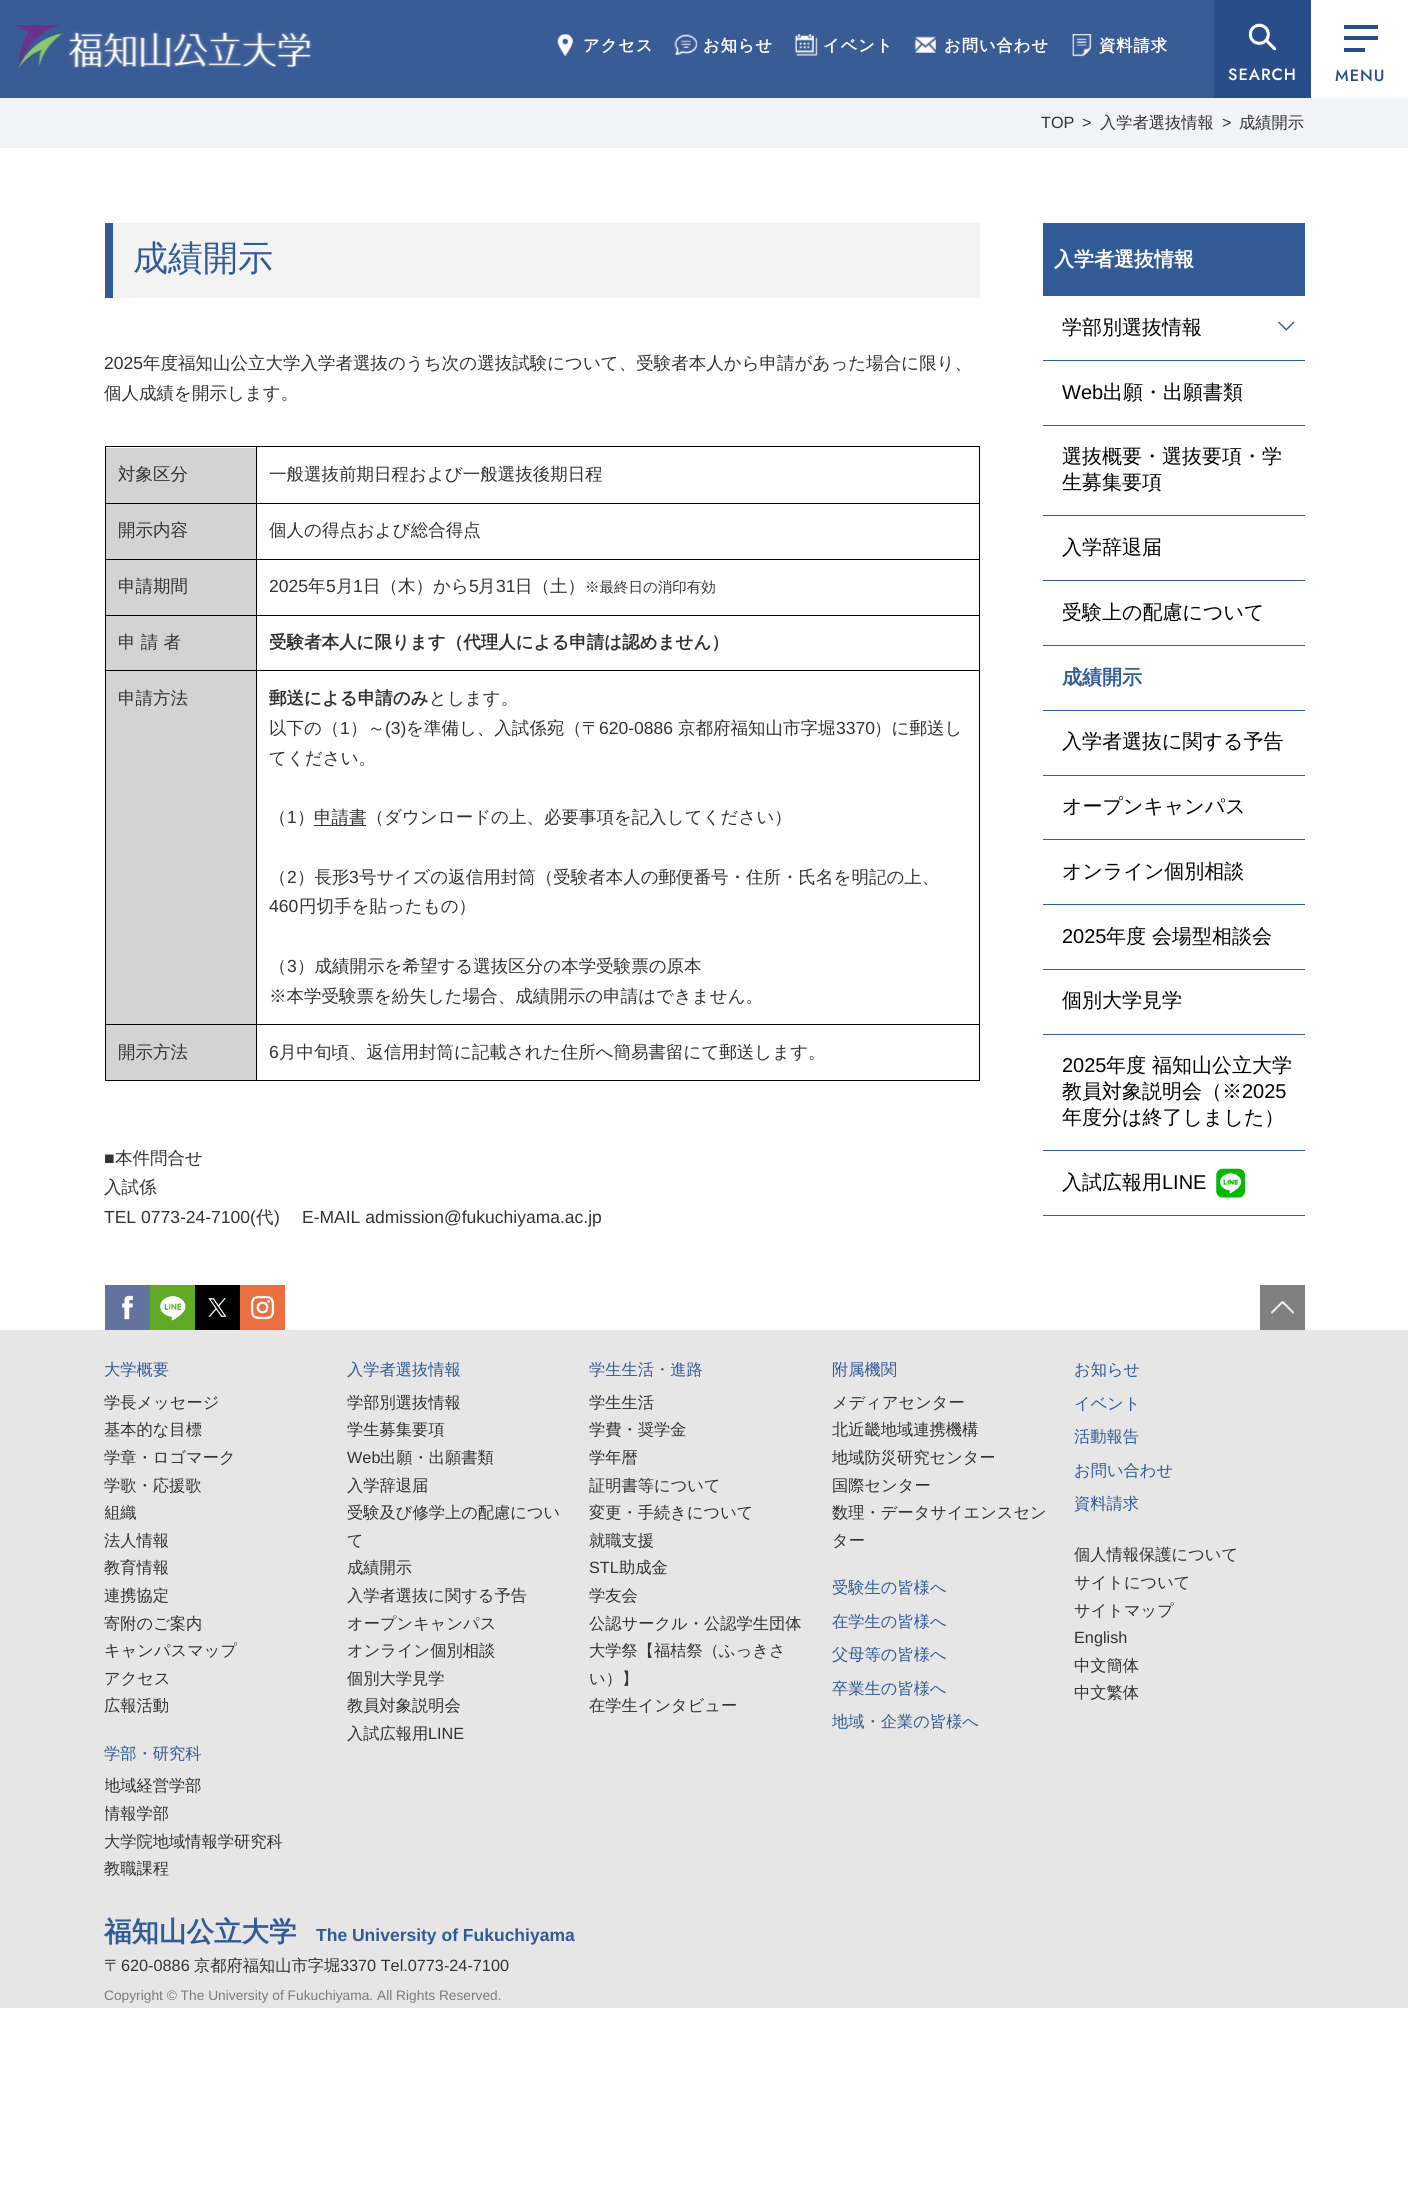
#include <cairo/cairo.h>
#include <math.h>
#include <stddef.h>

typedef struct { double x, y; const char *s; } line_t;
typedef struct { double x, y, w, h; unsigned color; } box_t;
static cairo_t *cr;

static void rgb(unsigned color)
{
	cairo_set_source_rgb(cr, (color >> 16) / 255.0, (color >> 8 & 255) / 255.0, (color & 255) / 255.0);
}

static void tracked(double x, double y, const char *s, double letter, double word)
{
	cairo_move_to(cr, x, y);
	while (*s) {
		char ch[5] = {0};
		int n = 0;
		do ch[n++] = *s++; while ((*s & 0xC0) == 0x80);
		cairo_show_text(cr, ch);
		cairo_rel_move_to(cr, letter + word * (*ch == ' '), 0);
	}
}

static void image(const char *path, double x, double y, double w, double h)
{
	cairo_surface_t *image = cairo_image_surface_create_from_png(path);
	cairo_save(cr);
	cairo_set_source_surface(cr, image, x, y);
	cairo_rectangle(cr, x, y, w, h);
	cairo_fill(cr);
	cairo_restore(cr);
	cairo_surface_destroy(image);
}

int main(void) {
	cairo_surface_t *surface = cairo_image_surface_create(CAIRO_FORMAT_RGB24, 1408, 2208);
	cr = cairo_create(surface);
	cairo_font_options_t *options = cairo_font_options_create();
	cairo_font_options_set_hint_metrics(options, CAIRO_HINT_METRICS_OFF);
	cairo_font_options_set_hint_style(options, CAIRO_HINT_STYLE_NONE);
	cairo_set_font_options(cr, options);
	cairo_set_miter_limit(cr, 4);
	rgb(0xffffff);
	cairo_paint(cr);
	rgb(0x395b96);
	cairo_rectangle(cr, 0, 0, 1214, 98);
	cairo_fill(cr);
	image("img/1.png", 15, 25, 297, 43);
	image("img/2.png", 557, 34, 16, 23);
	image("img/3.png", 674, 34, 24, 22);
	image("img/4.png", 794, 34, 24, 22);
	image("img/5.png", 914, 36, 22, 17);
	image("img/6.png", 1072, 34, 20, 23);
	rgb(0x294d8a);
	cairo_rectangle(cr, 1214, 0, 97, 98);
	cairo_fill(cr);
	image("img/7.png", 1248, 23, 29, 28);
	{
		static const box_t items[] = {
			{1344, 25, 34, 4, 0x294d8a},
			{1344, 36, 34, 4, 0x294d8a},
			{1344, 48, 21, 4, 0x294d8a},
			{0, 98, 1408, 50, 0xf2f3f6},
			{113, 223, 867, 75, 0xf3f3f3},
			{105, 223, 8, 75, 0x325a96},
			{105, 446, 875, 1, 0x000000},
			{979, 446, 1, 635, 0x000000},
			{105, 1080, 875, 1, 0x000000},
			{105, 446, 1, 635, 0x000000},
			{106, 448, 150, 55, 0xd3d3d3},
			{256, 503, 724, 1, 0x000000},
			{256, 559, 724, 1, 0x000000},
			{256, 615, 724, 1, 0x000000},
			{256, 670, 724, 1, 0x000000},
			{256, 1024, 724, 1, 0x000000},
			{256, 1024, 1, 57, 0x000000},
			{105, 1024, 153, 1, 0x000000},
			{256, 670, 1, 355, 0x000000},
			{105, 670, 153, 1, 0x000000},
			{256, 615, 1, 56, 0x000000},
			{105, 615, 153, 1, 0x000000},
			{256, 559, 1, 57, 0x000000},
			{105, 559, 153, 1, 0x000000},
			{256, 503, 1, 57, 0x000000},
			{105, 503, 153, 1, 0x000000},
			{256, 446, 1, 58, 0x000000},
			{106, 504, 150, 55, 0xd3d3d3},
			{106, 560, 150, 55, 0xd3d3d3},
			{106, 616, 150, 54, 0xd3d3d3},
			{106, 671, 150, 353, 0xd3d3d3},
			{314, 825, 52, 1, 0x323232},
			{106, 1025, 150, 55, 0xd3d3d3},
			{1043, 223, 262, 73, 0x325a96},
			{1043, 360, 262, 1, 0x325a96},
		};
		for (size_t i = 0; i < sizeof items / sizeof *items; i++) {
			rgb(items[i].color);
			cairo_rectangle(cr, items[i].x, items[i].y, items[i].w, items[i].h);
			cairo_fill(cr);
		}
	}
	rgb(0x395b96);
	cairo_new_path(cr);
	cairo_move_to(cr, 1279, 321.5);
	cairo_line_to(cr, 1287, 329.5);
	cairo_line_to(cr, 1286, 330.5);
	cairo_line_to(cr, 1278, 322.5);
	cairo_close_path(cr);
	cairo_fill(cr);
	cairo_new_path(cr);
	cairo_move_to(cr, 1285.5, 329.5);
	cairo_line_to(cr, 1293.5, 321.5);
	cairo_line_to(cr, 1294.5, 322.5);
	cairo_line_to(cr, 1286.5, 330.5);
	cairo_close_path(cr);
	cairo_fill(cr);
	{
		static const box_t items[] = {
			{1043, 425, 262, 1, 0x325a96},
			{1043, 515, 262, 1, 0x325a96},
			{1043, 580, 262, 1, 0x325a96},
			{1043, 645, 262, 1, 0x325a96},
			{1043, 710, 262, 1, 0x325a96},
			{1043, 775, 262, 1, 0x325a96},
			{1043, 839, 262, 1, 0x325a96},
			{1043, 904, 262, 1, 0x325a96},
			{1043, 969, 262, 1, 0x325a96},
			{1043, 1034, 262, 1, 0x325a96},
			{1043, 1150, 262, 1, 0x325a96},
			{1043, 1215, 262, 1, 0x325a96},
		};
		for (size_t i = 0; i < sizeof items / sizeof *items; i++) {
			rgb(items[i].color);
			cairo_rectangle(cr, items[i].x, items[i].y, items[i].w, items[i].h);
			cairo_fill(cr);
		}
	}
	image("img/8.png", 1216, 1168, 29, 30);
	image("img/9.png", 105, 1285, 45, 45);
	image("img/10.png", 150, 1285, 45, 45);
	image("img/11.png", 195, 1285, 45, 45);
	image("img/12.png", 240, 1285, 45, 45);
	image("img/13.png", 1260, 1285, 45, 45);
	rgb(0xe6e6e6);
	cairo_rectangle(cr, 0, 1330, 1408, 678);
	cairo_fill(cr);
	cairo_select_font_face(cr, "WenQuanYi Zen Hei", CAIRO_FONT_SLANT_NORMAL, CAIRO_FONT_WEIGHT_BOLD);
	cairo_set_font_size(cr, 16.25);
	rgb(0xffffff);
	{
		static const line_t items[] = {
			{583, 51, "アクセス"},
			{703, 51, "お知らせ"},
			{823, 51, "イベント"},
			{944, 51, "お問い合わせ"},
			{1099, 51, "資料請求"},
		};
		for (size_t i = 0; i < sizeof items / sizeof *items; i++) {
			tracked(items[i].x, items[i].y, items[i].s, 1, 0);
		}
	}
	cairo_select_font_face(cr, "Jost Medium", CAIRO_FONT_SLANT_NORMAL, CAIRO_FONT_WEIGHT_NORMAL);
	tracked(1228, 80, "SEARCH", 1, 0);
	rgb(0x294d8a);
	tracked(1335, 81, "MENU", 1, 0);
	cairo_select_font_face(cr, "Liberation Sans", CAIRO_FONT_SLANT_NORMAL, CAIRO_FONT_WEIGHT_NORMAL);
	rgb(0x323232);
	cairo_move_to(cr, 1041, 128);
	cairo_show_text(cr, "TOP");
	cairo_move_to(cr, 1082, 128);
	cairo_show_text(cr, ">");
	cairo_select_font_face(cr, "WenQuanYi Zen Hei Medium", CAIRO_FONT_SLANT_NORMAL, CAIRO_FONT_WEIGHT_NORMAL);
	cairo_move_to(cr, 1100, 128);
	cairo_show_text(cr, "入学者選抜情報");
	cairo_select_font_face(cr, "Liberation Sans", CAIRO_FONT_SLANT_NORMAL, CAIRO_FONT_WEIGHT_NORMAL);
	cairo_move_to(cr, 1222, 128);
	cairo_show_text(cr, ">");
	cairo_select_font_face(cr, "WenQuanYi Zen Hei Medium", CAIRO_FONT_SLANT_NORMAL, CAIRO_FONT_WEIGHT_NORMAL);
	cairo_move_to(cr, 1239, 128);
	cairo_show_text(cr, "成績開示");
	cairo_set_font_size(cr, 35);
	rgb(0x325a96);
	cairo_move_to(cr, 133, 270);
	cairo_show_text(cr, "成績開示");
	cairo_select_font_face(cr, "Liberation Sans", CAIRO_FONT_SLANT_NORMAL, CAIRO_FONT_WEIGHT_NORMAL);
	cairo_set_font_size(cr, 17.5);
	rgb(0x323232);
	cairo_move_to(cr, 104, 369);
	cairo_show_text(cr, "2025");
	cairo_select_font_face(cr, "WenQuanYi Zen Hei Medium", CAIRO_FONT_SLANT_NORMAL, CAIRO_FONT_WEIGHT_NORMAL);
	{
		static const line_t items[] = {
			{143, 369, "年度福知山公立大学入学者選抜のうち次の選抜試験について、受験者本人から申請があった場合に限り、"},
			{104, 399, "個人成績を開示します。"},
			{118, 480, "対象区分"},
			{269, 480, "一般選抜前期日程および一般選抜後期日程"},
			{118, 536, "開示内容"},
			{269, 536, "個人の得点および総合得点"},
			{118, 592, "申請期間"},
		};
		for (size_t i = 0; i < sizeof items / sizeof *items; i++) {
			cairo_move_to(cr, items[i].x, items[i].y);
			cairo_show_text(cr, items[i].s);
		}
	}
	cairo_select_font_face(cr, "Liberation Sans", CAIRO_FONT_SLANT_NORMAL, CAIRO_FONT_WEIGHT_NORMAL);
	cairo_move_to(cr, 269, 592);
	cairo_show_text(cr, "2025");
	cairo_select_font_face(cr, "WenQuanYi Zen Hei Medium", CAIRO_FONT_SLANT_NORMAL, CAIRO_FONT_WEIGHT_NORMAL);
	cairo_move_to(cr, 308, 592);
	cairo_show_text(cr, "年");
	cairo_select_font_face(cr, "Liberation Sans", CAIRO_FONT_SLANT_NORMAL, CAIRO_FONT_WEIGHT_NORMAL);
	cairo_move_to(cr, 326, 592);
	cairo_show_text(cr, "5");
	cairo_select_font_face(cr, "WenQuanYi Zen Hei Medium", CAIRO_FONT_SLANT_NORMAL, CAIRO_FONT_WEIGHT_NORMAL);
	cairo_move_to(cr, 336, 592);
	cairo_show_text(cr, "月");
	cairo_select_font_face(cr, "Liberation Sans", CAIRO_FONT_SLANT_NORMAL, CAIRO_FONT_WEIGHT_NORMAL);
	cairo_move_to(cr, 353, 592);
	cairo_show_text(cr, "1");
	cairo_select_font_face(cr, "WenQuanYi Zen Hei Medium", CAIRO_FONT_SLANT_NORMAL, CAIRO_FONT_WEIGHT_NORMAL);
	cairo_move_to(cr, 363, 592);
	cairo_show_text(cr, "日（木）から");
	cairo_select_font_face(cr, "Liberation Sans", CAIRO_FONT_SLANT_NORMAL, CAIRO_FONT_WEIGHT_NORMAL);
	cairo_move_to(cr, 469, 592);
	cairo_show_text(cr, "5");
	cairo_select_font_face(cr, "WenQuanYi Zen Hei Medium", CAIRO_FONT_SLANT_NORMAL, CAIRO_FONT_WEIGHT_NORMAL);
	cairo_move_to(cr, 478, 592);
	cairo_show_text(cr, "月");
	cairo_select_font_face(cr, "Liberation Sans", CAIRO_FONT_SLANT_NORMAL, CAIRO_FONT_WEIGHT_NORMAL);
	cairo_move_to(cr, 496, 592);
	cairo_show_text(cr, "31");
	cairo_select_font_face(cr, "WenQuanYi Zen Hei Medium", CAIRO_FONT_SLANT_NORMAL, CAIRO_FONT_WEIGHT_NORMAL);
	cairo_move_to(cr, 515, 592);
	cairo_show_text(cr, "日（土）");
	cairo_set_font_size(cr, 14.5);
	cairo_move_to(cr, 585, 592);
	cairo_show_text(cr, "※最終日の消印有効");
	cairo_set_font_size(cr, 17.5);
	cairo_move_to(cr, 118, 648);
	cairo_show_text(cr, "申 請 者");
	cairo_select_font_face(cr, "WenQuanYi Zen Hei", CAIRO_FONT_SLANT_NORMAL, CAIRO_FONT_WEIGHT_BOLD);
	cairo_move_to(cr, 269, 648);
	cairo_show_text(cr, "受験者本人に限ります（代理人による申請は認めません）");
	cairo_select_font_face(cr, "WenQuanYi Zen Hei Medium", CAIRO_FONT_SLANT_NORMAL, CAIRO_FONT_WEIGHT_NORMAL);
	cairo_move_to(cr, 118, 704);
	cairo_show_text(cr, "申請方法");
	cairo_select_font_face(cr, "WenQuanYi Zen Hei", CAIRO_FONT_SLANT_NORMAL, CAIRO_FONT_WEIGHT_BOLD);
	cairo_move_to(cr, 269, 704);
	cairo_show_text(cr, "郵送による申請のみ");
	cairo_select_font_face(cr, "WenQuanYi Zen Hei Medium", CAIRO_FONT_SLANT_NORMAL, CAIRO_FONT_WEIGHT_NORMAL);
	cairo_move_to(cr, 429, 704);
	cairo_show_text(cr, "とします。");
	cairo_move_to(cr, 269, 734);
	cairo_show_text(cr, "以下の（");
	cairo_select_font_face(cr, "Liberation Sans", CAIRO_FONT_SLANT_NORMAL, CAIRO_FONT_WEIGHT_NORMAL);
	cairo_move_to(cr, 340, 734);
	cairo_show_text(cr, "1");
	cairo_select_font_face(cr, "WenQuanYi Zen Hei Medium", CAIRO_FONT_SLANT_NORMAL, CAIRO_FONT_WEIGHT_NORMAL);
	cairo_move_to(cr, 350, 734);
	cairo_show_text(cr, "）～");
	cairo_select_font_face(cr, "Liberation Sans", CAIRO_FONT_SLANT_NORMAL, CAIRO_FONT_WEIGHT_NORMAL);
	cairo_move_to(cr, 385, 734);
	cairo_show_text(cr, "(3)");
	cairo_select_font_face(cr, "WenQuanYi Zen Hei Medium", CAIRO_FONT_SLANT_NORMAL, CAIRO_FONT_WEIGHT_NORMAL);
	cairo_move_to(cr, 406, 734);
	cairo_show_text(cr, "を準備し、入試係宛（〒");
	cairo_select_font_face(cr, "Liberation Sans", CAIRO_FONT_SLANT_NORMAL, CAIRO_FONT_WEIGHT_NORMAL);
	cairo_move_to(cr, 599, 734);
	cairo_show_text(cr, "620-0886");
	cairo_select_font_face(cr, "WenQuanYi Zen Hei Medium", CAIRO_FONT_SLANT_NORMAL, CAIRO_FONT_WEIGHT_NORMAL);
	cairo_move_to(cr, 678, 734);
	cairo_show_text(cr, "京都府福知山市字堀");
	cairo_select_font_face(cr, "Liberation Sans", CAIRO_FONT_SLANT_NORMAL, CAIRO_FONT_WEIGHT_NORMAL);
	cairo_move_to(cr, 836, 734);
	cairo_show_text(cr, "3370");
	cairo_select_font_face(cr, "WenQuanYi Zen Hei Medium", CAIRO_FONT_SLANT_NORMAL, CAIRO_FONT_WEIGHT_NORMAL);
	{
		static const line_t items[] = {
			{874, 734, "）に郵送し"},
			{269, 764, "てください。"},
			{269, 823, "（"},
		};
		for (size_t i = 0; i < sizeof items / sizeof *items; i++) {
			cairo_move_to(cr, items[i].x, items[i].y);
			cairo_show_text(cr, items[i].s);
		}
	}
	cairo_select_font_face(cr, "Liberation Sans", CAIRO_FONT_SLANT_NORMAL, CAIRO_FONT_WEIGHT_NORMAL);
	cairo_move_to(cr, 287, 823);
	cairo_show_text(cr, "1");
	cairo_select_font_face(cr, "WenQuanYi Zen Hei Medium", CAIRO_FONT_SLANT_NORMAL, CAIRO_FONT_WEIGHT_NORMAL);
	{
		static const line_t items[] = {
			{297, 823, "）"},
			{314, 823, "申請書（ダウンロードの上、必要事項を記入してください）"},
			{269, 883, "（"},
		};
		for (size_t i = 0; i < sizeof items / sizeof *items; i++) {
			cairo_move_to(cr, items[i].x, items[i].y);
			cairo_show_text(cr, items[i].s);
		}
	}
	cairo_select_font_face(cr, "Liberation Sans", CAIRO_FONT_SLANT_NORMAL, CAIRO_FONT_WEIGHT_NORMAL);
	cairo_move_to(cr, 287, 883);
	cairo_show_text(cr, "2");
	cairo_select_font_face(cr, "WenQuanYi Zen Hei Medium", CAIRO_FONT_SLANT_NORMAL, CAIRO_FONT_WEIGHT_NORMAL);
	cairo_move_to(cr, 297, 883);
	cairo_show_text(cr, "）長形");
	cairo_select_font_face(cr, "Liberation Sans", CAIRO_FONT_SLANT_NORMAL, CAIRO_FONT_WEIGHT_NORMAL);
	cairo_move_to(cr, 349, 883);
	cairo_show_text(cr, "3");
	cairo_select_font_face(cr, "WenQuanYi Zen Hei Medium", CAIRO_FONT_SLANT_NORMAL, CAIRO_FONT_WEIGHT_NORMAL);
	cairo_move_to(cr, 359, 883);
	cairo_show_text(cr, "号サイズの返信用封筒（受験者本人の郵便番号・住所・氏名を明記の上、");
	cairo_select_font_face(cr, "Liberation Sans", CAIRO_FONT_SLANT_NORMAL, CAIRO_FONT_WEIGHT_NORMAL);
	cairo_move_to(cr, 269, 912);
	cairo_show_text(cr, "460");
	cairo_select_font_face(cr, "WenQuanYi Zen Hei Medium", CAIRO_FONT_SLANT_NORMAL, CAIRO_FONT_WEIGHT_NORMAL);
	cairo_move_to(cr, 299, 912);
	cairo_show_text(cr, "円切手を貼ったもの）");
	cairo_move_to(cr, 269, 972);
	cairo_show_text(cr, "（");
	cairo_select_font_face(cr, "Liberation Sans", CAIRO_FONT_SLANT_NORMAL, CAIRO_FONT_WEIGHT_NORMAL);
	cairo_move_to(cr, 287, 972);
	cairo_show_text(cr, "3");
	cairo_select_font_face(cr, "WenQuanYi Zen Hei Medium", CAIRO_FONT_SLANT_NORMAL, CAIRO_FONT_WEIGHT_NORMAL);
	{
		static const line_t items[] = {
			{297, 972, "）成績開示を希望する選抜区分の本学受験票の原本"},
			{269, 1002, "※本学受験票を紛失した場合、成績開示の申請はできません。"},
			{118, 1058, "開示方法"},
		};
		for (size_t i = 0; i < sizeof items / sizeof *items; i++) {
			cairo_move_to(cr, items[i].x, items[i].y);
			cairo_show_text(cr, items[i].s);
		}
	}
	cairo_select_font_face(cr, "Liberation Sans", CAIRO_FONT_SLANT_NORMAL, CAIRO_FONT_WEIGHT_NORMAL);
	cairo_move_to(cr, 269, 1058);
	cairo_show_text(cr, "6");
	cairo_select_font_face(cr, "WenQuanYi Zen Hei Medium", CAIRO_FONT_SLANT_NORMAL, CAIRO_FONT_WEIGHT_NORMAL);
	cairo_move_to(cr, 279, 1058);
	cairo_show_text(cr, "月中旬頃、返信用封筒に記載された住所へ簡易書留にて郵送します。");
	cairo_select_font_face(cr, "Liberation Sans", CAIRO_FONT_SLANT_NORMAL, CAIRO_FONT_WEIGHT_NORMAL);
	cairo_move_to(cr, 104, 1164);
	cairo_show_text(cr, "■");
	cairo_select_font_face(cr, "WenQuanYi Zen Hei Medium", CAIRO_FONT_SLANT_NORMAL, CAIRO_FONT_WEIGHT_NORMAL);
	cairo_move_to(cr, 115, 1164);
	cairo_show_text(cr, "本件問合せ");
	cairo_move_to(cr, 104, 1193);
	cairo_show_text(cr, "入試係");
	cairo_select_font_face(cr, "Liberation Sans", CAIRO_FONT_SLANT_NORMAL, CAIRO_FONT_WEIGHT_NORMAL);
	cairo_move_to(cr, 104, 1223);
	cairo_show_text(cr, "TEL 0773-24-7100(");
	cairo_select_font_face(cr, "WenQuanYi Zen Hei Medium", CAIRO_FONT_SLANT_NORMAL, CAIRO_FONT_WEIGHT_NORMAL);
	cairo_move_to(cr, 256, 1223);
	cairo_show_text(cr, "代");
	cairo_select_font_face(cr, "Liberation Sans", CAIRO_FONT_SLANT_NORMAL, CAIRO_FONT_WEIGHT_NORMAL);
	cairo_move_to(cr, 274, 1223);
	cairo_show_text(cr, ")");
	cairo_move_to(cr, 302, 1223);
	cairo_show_text(cr, "E-MAIL admission@fukuchiyama.ac.jp");
	cairo_select_font_face(cr, "WenQuanYi Zen Hei", CAIRO_FONT_SLANT_NORMAL, CAIRO_FONT_WEIGHT_BOLD);
	cairo_set_font_size(cr, 20);
	rgb(0xffffff);
	cairo_move_to(cr, 1054, 266);
	cairo_show_text(cr, "入学者選抜情報");
	cairo_select_font_face(cr, "WenQuanYi Zen Hei Medium", CAIRO_FONT_SLANT_NORMAL, CAIRO_FONT_WEIGHT_NORMAL);
	rgb(0x000000);
	cairo_move_to(cr, 1062, 334);
	cairo_show_text(cr, "学部別選抜情報");
	cairo_select_font_face(cr, "Liberation Sans", CAIRO_FONT_SLANT_NORMAL, CAIRO_FONT_WEIGHT_NORMAL);
	cairo_move_to(cr, 1062, 399);
	cairo_show_text(cr, "Web");
	cairo_select_font_face(cr, "WenQuanYi Zen Hei Medium", CAIRO_FONT_SLANT_NORMAL, CAIRO_FONT_WEIGHT_NORMAL);
	{
		static const line_t items[] = {
			{1103, 399, "出願・出願書類"},
			{1062, 463, "選抜概要・選抜要項・学"},
			{1062, 489, "生募集要項"},
			{1062, 554, "入学辞退届"},
			{1062, 619, "受験上の配慮について"},
		};
		for (size_t i = 0; i < sizeof items / sizeof *items; i++) {
			cairo_move_to(cr, items[i].x, items[i].y);
			cairo_show_text(cr, items[i].s);
		}
	}
	cairo_select_font_face(cr, "WenQuanYi Zen Hei", CAIRO_FONT_SLANT_NORMAL, CAIRO_FONT_WEIGHT_BOLD);
	rgb(0x325a96);
	cairo_move_to(cr, 1062, 684);
	cairo_show_text(cr, "成績開示");
	cairo_select_font_face(cr, "WenQuanYi Zen Hei Medium", CAIRO_FONT_SLANT_NORMAL, CAIRO_FONT_WEIGHT_NORMAL);
	rgb(0x000000);
	{
		static const line_t items[] = {
			{1062, 748, "入学者選抜に関する予告"},
			{1062, 813, "オープンキャンパス"},
			{1062, 878, "オンライン個別相談"},
		};
		for (size_t i = 0; i < sizeof items / sizeof *items; i++) {
			cairo_move_to(cr, items[i].x, items[i].y);
			cairo_show_text(cr, items[i].s);
		}
	}
	cairo_select_font_face(cr, "Liberation Sans", CAIRO_FONT_SLANT_NORMAL, CAIRO_FONT_WEIGHT_NORMAL);
	cairo_move_to(cr, 1062, 943);
	cairo_show_text(cr, "2025");
	cairo_select_font_face(cr, "WenQuanYi Zen Hei Medium", CAIRO_FONT_SLANT_NORMAL, CAIRO_FONT_WEIGHT_NORMAL);
	cairo_move_to(cr, 1106, 943);
	cairo_show_text(cr, "年度 会場型相談会");
	cairo_move_to(cr, 1062, 1007);
	cairo_show_text(cr, "個別大学見学");
	cairo_select_font_face(cr, "Liberation Sans", CAIRO_FONT_SLANT_NORMAL, CAIRO_FONT_WEIGHT_NORMAL);
	cairo_move_to(cr, 1062, 1072);
	cairo_show_text(cr, "2025");
	cairo_select_font_face(cr, "WenQuanYi Zen Hei Medium", CAIRO_FONT_SLANT_NORMAL, CAIRO_FONT_WEIGHT_NORMAL);
	cairo_move_to(cr, 1106, 1072);
	cairo_show_text(cr, "年度 福知山公立大学");
	cairo_move_to(cr, 1062, 1098);
	cairo_show_text(cr, "教員対象説明会（※");
	cairo_select_font_face(cr, "Liberation Sans", CAIRO_FONT_SLANT_NORMAL, CAIRO_FONT_WEIGHT_NORMAL);
	cairo_move_to(cr, 1242, 1098);
	cairo_show_text(cr, "2025");
	cairo_select_font_face(cr, "WenQuanYi Zen Hei Medium", CAIRO_FONT_SLANT_NORMAL, CAIRO_FONT_WEIGHT_NORMAL);
	cairo_move_to(cr, 1062, 1124);
	cairo_show_text(cr, "年度分は終了しました）");
	cairo_move_to(cr, 1062, 1189);
	cairo_show_text(cr, "入試広報用");
	cairo_select_font_face(cr, "Liberation Sans", CAIRO_FONT_SLANT_NORMAL, CAIRO_FONT_WEIGHT_NORMAL);
	cairo_move_to(cr, 1162, 1189);
	cairo_show_text(cr, "LINE");
	cairo_select_font_face(cr, "WenQuanYi Zen Hei Medium", CAIRO_FONT_SLANT_NORMAL, CAIRO_FONT_WEIGHT_NORMAL);
	cairo_set_font_size(cr, 16.25);
	rgb(0x325a96);
	cairo_move_to(cr, 104, 1375);
	cairo_show_text(cr, "大学概要");
	rgb(0x323232);
	{
		static const line_t items[] = {
			{104, 1408, "学長メッセージ"},
			{104, 1435, "基本的な目標"},
			{104, 1463, "学章・ロゴマーク"},
			{104, 1491, "学歌・応援歌"},
		};
		for (size_t i = 0; i < sizeof items / sizeof *items; i++) {
			cairo_move_to(cr, items[i].x, items[i].y);
			cairo_show_text(cr, items[i].s);
		}
	}
	cairo_save(cr);
	cairo_rectangle(cr, 105, 1330, 1200, 578);
	cairo_clip(cr);
	cairo_move_to(cr, 104, 1518);
	cairo_show_text(cr, "組織");
	cairo_restore(cr);
	{
		static const line_t items[] = {
			{104, 1546, "法人情報"},
			{104, 1573, "教育情報"},
			{104, 1601, "連携協定"},
			{104, 1629, "寄附のご案内"},
			{104, 1656, "キャンパスマップ"},
			{104, 1684, "アクセス"},
			{104, 1711, "広報活動"},
		};
		for (size_t i = 0; i < sizeof items / sizeof *items; i++) {
			cairo_move_to(cr, items[i].x, items[i].y);
			cairo_show_text(cr, items[i].s);
		}
	}
	rgb(0x325a96);
	cairo_move_to(cr, 104, 1759);
	cairo_show_text(cr, "学部・研究科");
	cairo_save(cr);
	cairo_rectangle(cr, 105, 1330, 1200, 578);
	cairo_clip(cr);
	rgb(0x323232);
	cairo_move_to(cr, 104, 1791);
	cairo_show_text(cr, "地域経営学部");
	cairo_move_to(cr, 104, 1819);
	cairo_show_text(cr, "情報学部");
	cairo_restore(cr);
	rgb(0x323232);
	cairo_move_to(cr, 104, 1847);
	cairo_show_text(cr, "大学院地域情報学研究科");
	cairo_move_to(cr, 104, 1874);
	cairo_show_text(cr, "教職課程");
	rgb(0x325a96);
	cairo_move_to(cr, 347, 1375);
	cairo_show_text(cr, "入学者選抜情報");
	rgb(0x323232);
	cairo_move_to(cr, 347, 1408);
	cairo_show_text(cr, "学部別選抜情報");
	cairo_move_to(cr, 347, 1435);
	cairo_show_text(cr, "学生募集要項");
	cairo_select_font_face(cr, "Liberation Sans", CAIRO_FONT_SLANT_NORMAL, CAIRO_FONT_WEIGHT_NORMAL);
	cairo_move_to(cr, 347, 1463);
	cairo_show_text(cr, "Web");
	cairo_select_font_face(cr, "WenQuanYi Zen Hei Medium", CAIRO_FONT_SLANT_NORMAL, CAIRO_FONT_WEIGHT_NORMAL);
	{
		static const line_t items[] = {
			{380, 1463, "出願・出願書類"},
			{347, 1491, "入学辞退届"},
			{347, 1518, "受験及び修学上の配慮につい"},
			{347, 1546, "て"},
			{347, 1573, "成績開示"},
			{347, 1601, "入学者選抜に関する予告"},
			{347, 1629, "オープンキャンパス"},
			{347, 1656, "オンライン個別相談"},
			{347, 1684, "個別大学見学"},
			{347, 1711, "教員対象説明会"},
			{347, 1739, "入試広報用"},
		};
		for (size_t i = 0; i < sizeof items / sizeof *items; i++) {
			cairo_move_to(cr, items[i].x, items[i].y);
			cairo_show_text(cr, items[i].s);
		}
	}
	cairo_select_font_face(cr, "Liberation Sans", CAIRO_FONT_SLANT_NORMAL, CAIRO_FONT_WEIGHT_NORMAL);
	cairo_move_to(cr, 428, 1739);
	cairo_show_text(cr, "LINE");
	cairo_select_font_face(cr, "WenQuanYi Zen Hei Medium", CAIRO_FONT_SLANT_NORMAL, CAIRO_FONT_WEIGHT_NORMAL);
	rgb(0x325a96);
	cairo_move_to(cr, 589, 1375);
	cairo_show_text(cr, "学生生活・進路");
	rgb(0x323232);
	{
		static const line_t items[] = {
			{589, 1408, "学生生活"},
			{589, 1435, "学費・奨学金"},
			{589, 1463, "学年暦"},
			{589, 1491, "証明書等について"},
			{589, 1518, "変更・手続きについて"},
			{589, 1546, "就職支援"},
		};
		for (size_t i = 0; i < sizeof items / sizeof *items; i++) {
			cairo_move_to(cr, items[i].x, items[i].y);
			cairo_show_text(cr, items[i].s);
		}
	}
	cairo_select_font_face(cr, "Liberation Sans", CAIRO_FONT_SLANT_NORMAL, CAIRO_FONT_WEIGHT_NORMAL);
	cairo_move_to(cr, 589, 1573);
	cairo_show_text(cr, "STL");
	cairo_select_font_face(cr, "WenQuanYi Zen Hei Medium", CAIRO_FONT_SLANT_NORMAL, CAIRO_FONT_WEIGHT_NORMAL);
	{
		static const line_t items[] = {
			{619, 1573, "助成金"},
			{589, 1601, "学友会"},
			{589, 1629, "公認サークル・公認学生団体"},
			{589, 1656, "大学祭【福桔祭（ふっきさ"},
			{589, 1684, "い）】"},
			{589, 1711, "在学生インタビュー"},
		};
		for (size_t i = 0; i < sizeof items / sizeof *items; i++) {
			cairo_move_to(cr, items[i].x, items[i].y);
			cairo_show_text(cr, items[i].s);
		}
	}
	rgb(0x325a96);
	cairo_move_to(cr, 832, 1375);
	cairo_show_text(cr, "附属機関");
	rgb(0x323232);
	{
		static const line_t items[] = {
			{832, 1408, "メディアセンター"},
			{832, 1435, "北近畿地域連携機構"},
			{832, 1463, "地域防災研究センター"},
			{832, 1491, "国際センター"},
			{832, 1518, "数理・データサイエンスセン"},
			{832, 1546, "ター"},
		};
		for (size_t i = 0; i < sizeof items / sizeof *items; i++) {
			cairo_move_to(cr, items[i].x, items[i].y);
			cairo_show_text(cr, items[i].s);
		}
	}
	rgb(0x325a96);
	{
		static const line_t items[] = {
			{832, 1593, "受験生の皆様へ"},
			{832, 1627, "在学生の皆様へ"},
			{832, 1660, "父母等の皆様へ"},
			{832, 1694, "卒業生の皆様へ"},
			{832, 1727, "地域・企業の皆様へ"},
			{1074, 1375, "お知らせ"},
			{1074, 1409, "イベント"},
			{1074, 1442, "活動報告"},
			{1074, 1476, "お問い合わせ"},
			{1074, 1509, "資料請求"},
		};
		for (size_t i = 0; i < sizeof items / sizeof *items; i++) {
			cairo_move_to(cr, items[i].x, items[i].y);
			cairo_show_text(cr, items[i].s);
		}
	}
	rgb(0x323232);
	{
		static const line_t items[] = {
			{1074, 1560, "個人情報保護について"},
			{1074, 1588, "サイトについて"},
			{1074, 1616, "サイトマップ"},
		};
		for (size_t i = 0; i < sizeof items / sizeof *items; i++) {
			cairo_move_to(cr, items[i].x, items[i].y);
			cairo_show_text(cr, items[i].s);
		}
	}
	cairo_select_font_face(cr, "Liberation Sans", CAIRO_FONT_SLANT_NORMAL, CAIRO_FONT_WEIGHT_NORMAL);
	cairo_move_to(cr, 1074, 1643);
	cairo_show_text(cr, "English");
	cairo_select_font_face(cr, "WenQuanYi Zen Hei Medium", CAIRO_FONT_SLANT_NORMAL, CAIRO_FONT_WEIGHT_NORMAL);
	cairo_move_to(cr, 1074, 1671);
	cairo_show_text(cr, "中文簡体");
	cairo_move_to(cr, 1074, 1698);
	cairo_show_text(cr, "中文繁体");
	cairo_select_font_face(cr, "WenQuanYi Zen Hei", CAIRO_FONT_SLANT_NORMAL, CAIRO_FONT_WEIGHT_BOLD);
	cairo_set_font_size(cr, 27.5);
	rgb(0x325a96);
	cairo_move_to(cr, 104, 1941);
	cairo_show_text(cr, "福知山公立大学");
	cairo_select_font_face(cr, "Liberation Sans", CAIRO_FONT_SLANT_NORMAL, CAIRO_FONT_WEIGHT_BOLD);
	cairo_set_font_size(cr, 17.5);
	cairo_move_to(cr, 316, 1941);
	cairo_show_text(cr, "The University of Fukuchiyama");
	cairo_select_font_face(cr, "WenQuanYi Zen Hei Medium", CAIRO_FONT_SLANT_NORMAL, CAIRO_FONT_WEIGHT_NORMAL);
	cairo_set_font_size(cr, 16.25);
	rgb(0x323232);
	cairo_move_to(cr, 104, 1971);
	cairo_show_text(cr, "〒");
	cairo_select_font_face(cr, "Liberation Sans", CAIRO_FONT_SLANT_NORMAL, CAIRO_FONT_WEIGHT_NORMAL);
	cairo_move_to(cr, 121, 1971);
	cairo_show_text(cr, "620-0886");
	cairo_select_font_face(cr, "WenQuanYi Zen Hei Medium", CAIRO_FONT_SLANT_NORMAL, CAIRO_FONT_WEIGHT_NORMAL);
	cairo_move_to(cr, 194, 1971);
	cairo_show_text(cr, "京都府福知山市字堀");
	cairo_select_font_face(cr, "Liberation Sans", CAIRO_FONT_SLANT_NORMAL, CAIRO_FONT_WEIGHT_NORMAL);
	cairo_move_to(cr, 340, 1971);
	cairo_show_text(cr, "3370 Tel.0773-24-7100");
	cairo_set_font_size(cr, 13.75);
	rgb(0x7c7c7c);
	cairo_move_to(cr, 104, 2000);
	cairo_show_text(cr, "Copyright © The University of Fukuchiyama. All Rights Reserved.");
	cairo_surface_write_to_png(surface, "page.png");
	cairo_font_options_destroy(options);
	cairo_destroy(cr);
	cairo_surface_destroy(surface);
	return 0;
}
